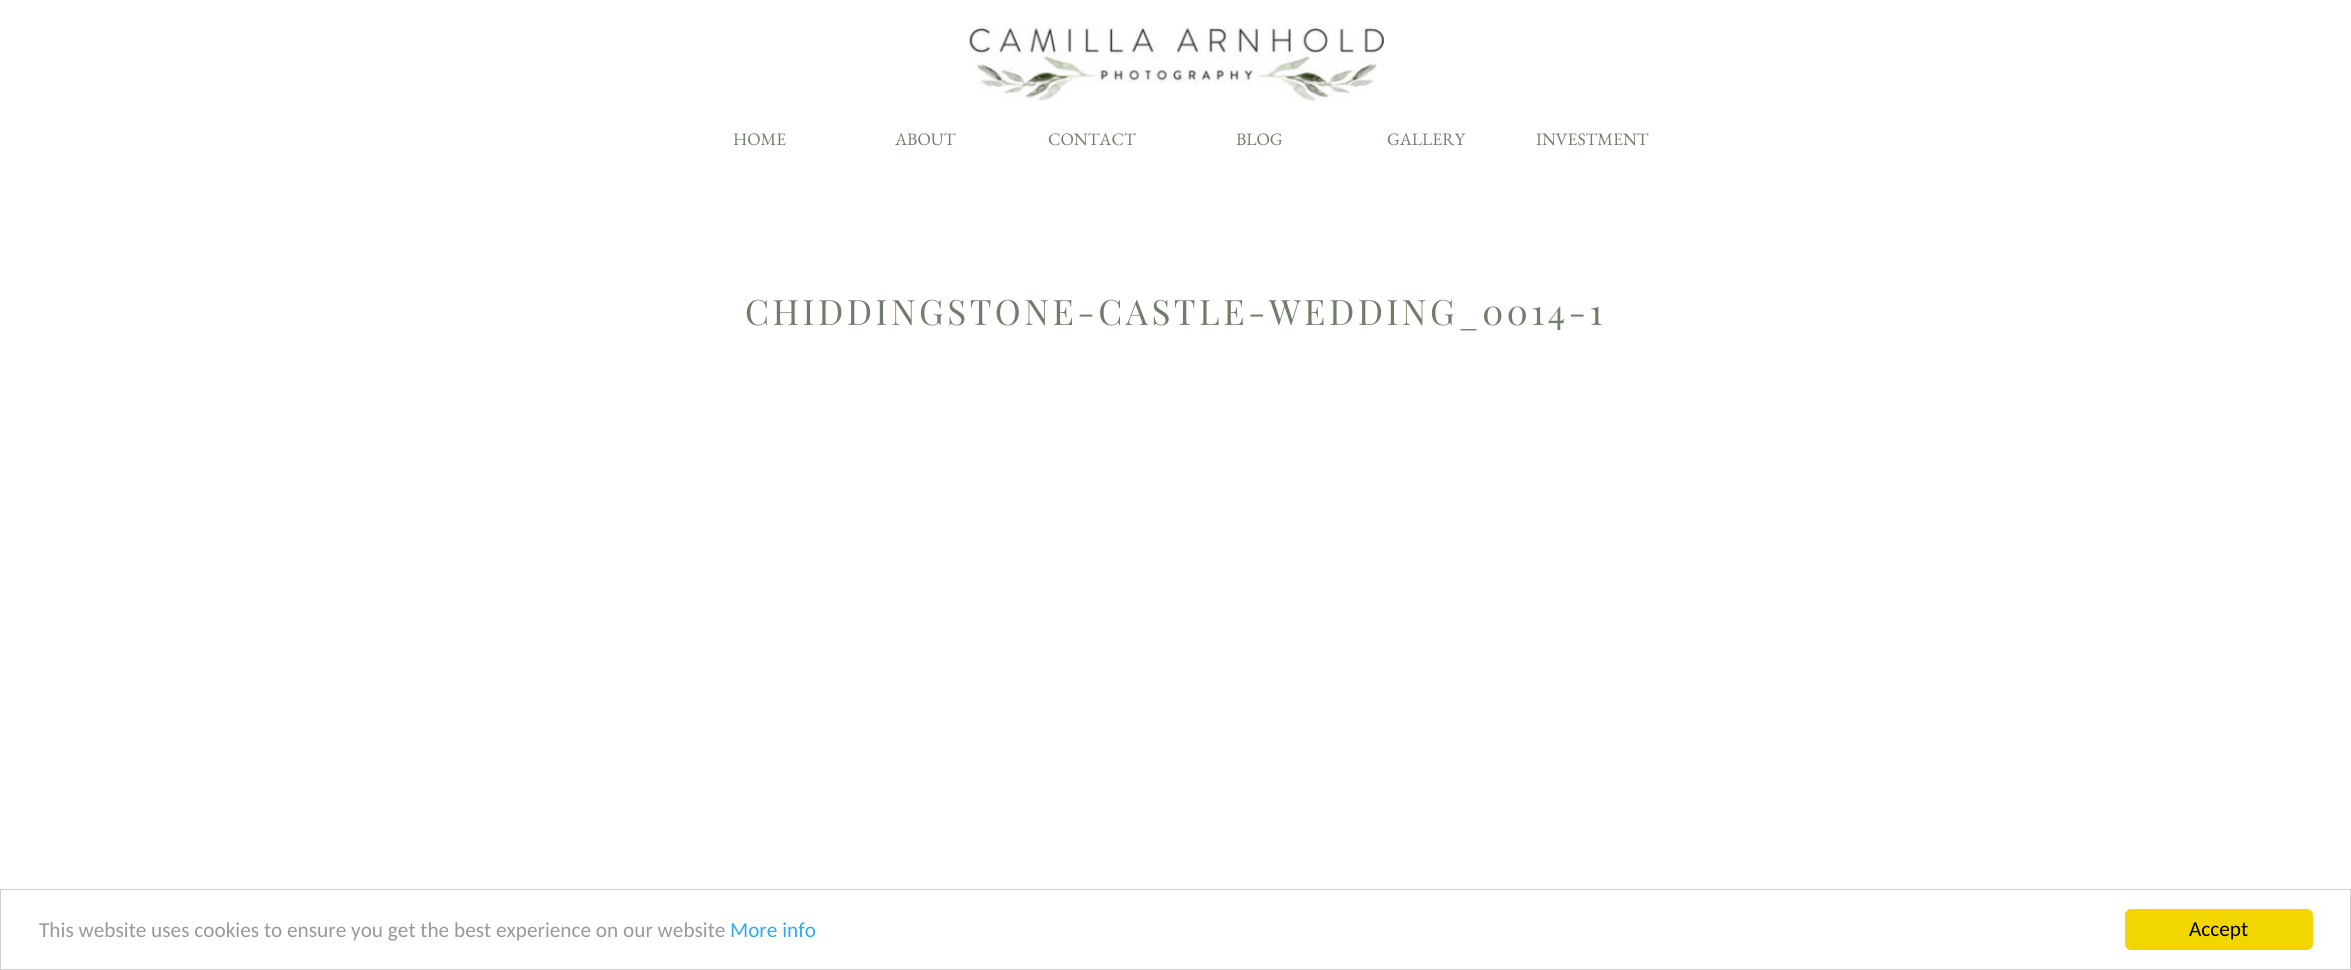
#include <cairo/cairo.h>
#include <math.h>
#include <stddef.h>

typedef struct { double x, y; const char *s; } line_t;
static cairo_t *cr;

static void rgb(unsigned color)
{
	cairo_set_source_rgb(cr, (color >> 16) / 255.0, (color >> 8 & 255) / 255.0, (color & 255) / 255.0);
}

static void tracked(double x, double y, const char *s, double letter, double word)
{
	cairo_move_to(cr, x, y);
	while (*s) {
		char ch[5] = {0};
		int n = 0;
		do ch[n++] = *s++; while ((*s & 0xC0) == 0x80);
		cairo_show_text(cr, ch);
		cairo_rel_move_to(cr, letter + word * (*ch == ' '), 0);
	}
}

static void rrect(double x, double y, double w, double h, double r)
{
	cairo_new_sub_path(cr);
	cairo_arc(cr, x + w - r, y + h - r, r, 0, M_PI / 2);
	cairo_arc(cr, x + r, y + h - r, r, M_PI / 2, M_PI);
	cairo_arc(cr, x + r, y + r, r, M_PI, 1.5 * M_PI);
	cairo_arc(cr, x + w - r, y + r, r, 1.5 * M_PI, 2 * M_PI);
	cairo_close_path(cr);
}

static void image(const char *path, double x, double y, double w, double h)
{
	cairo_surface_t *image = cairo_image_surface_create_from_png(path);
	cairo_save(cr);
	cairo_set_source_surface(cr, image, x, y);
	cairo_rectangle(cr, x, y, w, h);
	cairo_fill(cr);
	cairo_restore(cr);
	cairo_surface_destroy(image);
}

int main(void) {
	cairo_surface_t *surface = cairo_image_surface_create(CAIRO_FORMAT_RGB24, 2351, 970);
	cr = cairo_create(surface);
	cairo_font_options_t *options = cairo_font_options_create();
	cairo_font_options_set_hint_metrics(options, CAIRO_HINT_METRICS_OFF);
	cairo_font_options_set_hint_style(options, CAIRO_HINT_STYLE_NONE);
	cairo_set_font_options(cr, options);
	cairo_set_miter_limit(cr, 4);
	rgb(0xffffff);
	cairo_paint(cr);
	image("img/1.png", 969, 26, 415, 76);
	cairo_rectangle(cr, 0.5, 889.5, 2350, 80);
	rgb(0xcccccc);
	cairo_set_line_width(cr, 1);
	cairo_stroke(cr);
	rgb(0xf1d600);
	rrect(2125, 909, 188, 41, 6);
	cairo_fill(cr);
	cairo_select_font_face(cr, "EB Garamond", CAIRO_FONT_SLANT_NORMAL, CAIRO_FONT_WEIGHT_NORMAL);
	cairo_set_font_size(cr, 17.5);
	rgb(0x707d6a);
	{
		static const line_t items[] = {
			{733, 145, "HOME"},
			{895, 145, "ABOUT"},
			{1048, 145, "CONTACT"},
			{1236, 145, "BLOG"},
			{1387, 145, "GALLERY"},
			{1536, 145, "INVESTMENT"},
		};
		for (size_t i = 0; i < sizeof items / sizeof *items; i++) {
			cairo_move_to(cr, items[i].x, items[i].y);
			cairo_show_text(cr, items[i].s);
		}
	}
	cairo_select_font_face(cr, "Playfair Display", CAIRO_FONT_SLANT_NORMAL, CAIRO_FONT_WEIGHT_NORMAL);
	cairo_set_font_size(cr, 35);
	tracked(745, 325, "CHIDDINGSTONE-CASTLE-WEDDING_0014-1", 3.5, 0);
	cairo_select_font_face(cr, "Carlito", CAIRO_FONT_SLANT_NORMAL, CAIRO_FONT_WEIGHT_NORMAL);
	cairo_set_font_size(cr, 21.25);
	rgb(0x999999);
	cairo_move_to(cr, 39, 937);
	cairo_show_text(cr, "This website uses cookies to ensure you get the best experience on our website");
	rgb(0x31a8f0);
	cairo_move_to(cr, 730, 937);
	cairo_show_text(cr, "More info");
	rgb(0x000000);
	cairo_move_to(cr, 2189, 936);
	cairo_show_text(cr, "Accept");
	cairo_surface_write_to_png(surface, "page.png");
	cairo_font_options_destroy(options);
	cairo_destroy(cr);
	cairo_surface_destroy(surface);
	return 0;
}
